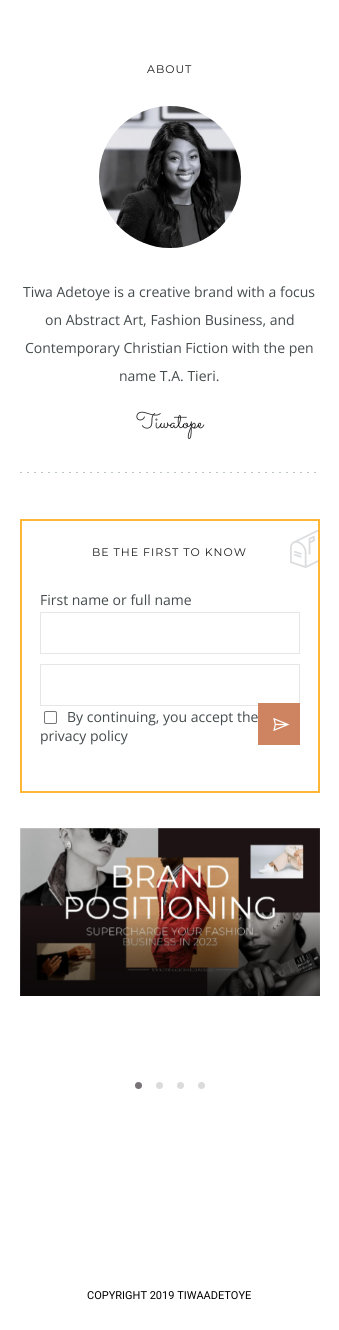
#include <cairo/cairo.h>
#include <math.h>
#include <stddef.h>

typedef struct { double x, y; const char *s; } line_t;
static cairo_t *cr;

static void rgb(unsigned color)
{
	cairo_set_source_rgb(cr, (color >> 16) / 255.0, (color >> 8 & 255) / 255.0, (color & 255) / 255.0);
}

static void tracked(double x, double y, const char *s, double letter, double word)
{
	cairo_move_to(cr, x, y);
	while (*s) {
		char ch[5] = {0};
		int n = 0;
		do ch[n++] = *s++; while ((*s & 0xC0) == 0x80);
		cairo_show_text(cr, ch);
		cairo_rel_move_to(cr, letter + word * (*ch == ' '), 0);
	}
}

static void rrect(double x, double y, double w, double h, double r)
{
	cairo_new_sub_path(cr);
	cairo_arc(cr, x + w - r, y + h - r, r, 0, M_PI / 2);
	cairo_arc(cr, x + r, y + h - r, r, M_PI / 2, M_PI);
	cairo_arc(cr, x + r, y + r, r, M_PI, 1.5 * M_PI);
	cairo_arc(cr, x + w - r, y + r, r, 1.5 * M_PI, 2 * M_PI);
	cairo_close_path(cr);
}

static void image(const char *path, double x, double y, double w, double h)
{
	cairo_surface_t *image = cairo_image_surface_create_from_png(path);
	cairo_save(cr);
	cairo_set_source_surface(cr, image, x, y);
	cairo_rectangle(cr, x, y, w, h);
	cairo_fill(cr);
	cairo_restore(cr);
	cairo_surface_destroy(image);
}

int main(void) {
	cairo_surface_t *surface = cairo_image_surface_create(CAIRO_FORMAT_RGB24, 339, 1330);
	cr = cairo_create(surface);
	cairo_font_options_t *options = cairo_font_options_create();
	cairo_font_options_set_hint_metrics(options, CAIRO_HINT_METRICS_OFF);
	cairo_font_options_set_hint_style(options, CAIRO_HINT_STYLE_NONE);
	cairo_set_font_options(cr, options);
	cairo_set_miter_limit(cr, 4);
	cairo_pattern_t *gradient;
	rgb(0xffffff);
	cairo_paint(cr);
	image("img/1.png", 99, 106, 142, 142);
	image("img/2.png", 20, 472, 296, 1);
	image("img/3.png", 290, 530, 28, 38);
	cairo_rectangle(cr, 21, 520, 298, 272);
	rgb(0xffb535);
	cairo_stroke(cr);
	cairo_rectangle(cr, 40.5, 612.5, 259, 41);
	rgb(0xe5e6e8);
	cairo_set_line_width(cr, 1);
	cairo_stroke(cr);
	cairo_rectangle(cr, 40.5, 664.5, 259, 41);
	cairo_stroke(cr);
	rrect(44.5, 711.5, 12, 12, 1.5);
	rgb(0x767676);
	cairo_stroke(cr);
	rgb(0xce8460);
	cairo_rectangle(cr, 258, 703, 42, 42);
	cairo_fill(cr);
	image("img/4.png", 273, 718, 17, 13);
	image("img/5.png", 20, 828, 300, 168);
	gradient = cairo_pattern_create_linear(170, 828, 170, 997);
	cairo_pattern_add_color_stop_rgba(gradient, 0.5, 0.004, 0.004, 0.004, 0);
	cairo_pattern_add_color_stop_rgba(gradient, 0.7, 0.004, 0.004, 0.004, 0.35);
	cairo_pattern_add_color_stop_rgba(gradient, 0.85, 0.004, 0.004, 0.004, 0.5);
	cairo_pattern_add_color_stop_rgba(gradient, 1, 0.004, 0.004, 0.004, 0.6);
	cairo_set_source(cr, gradient);
	cairo_pattern_destroy(gradient);
	cairo_rectangle(cr, 20, 915, 300, 81);
	cairo_fill(cr);
	rgb(0x787377);
	cairo_arc(cr, 138.5, 1085.5, 3.5, 0, 2 * M_PI);
	cairo_fill(cr);
	rgb(0xdbdbdb);
	cairo_arc(cr, 159.5, 1085.5, 3.5, 0, 2 * M_PI);
	cairo_fill(cr);
	cairo_arc(cr, 180.5, 1085.5, 3.5, 0, 2 * M_PI);
	cairo_fill(cr);
	cairo_arc(cr, 201.5, 1085.5, 3.5, 0, 2 * M_PI);
	cairo_fill(cr);
	cairo_select_font_face(cr, "Montserrat", CAIRO_FONT_SLANT_NORMAL, CAIRO_FONT_WEIGHT_NORMAL);
	cairo_set_font_size(cr, 11);
	rgb(0x1c1d1f);
	tracked(147, 73, "ABOUT", 1, 0);
	cairo_select_font_face(cr, "Open Sans", CAIRO_FONT_SLANT_NORMAL, CAIRO_FONT_WEIGHT_NORMAL);
	cairo_set_font_size(cr, 14);
	rgb(0x444b4d);
	{
		static const line_t items[] = {
			{23, 297, "Tiwa Adetoye is a creative brand with a focus"},
			{45, 325, "on Abstract Art, Fashion Business, and"},
			{25, 353, "Contemporary Christian Fiction with the pen"},
			{119, 381, "name T.A. Tieri."},
		};
		for (size_t i = 0; i < sizeof items / sizeof *items; i++) {
			cairo_move_to(cr, items[i].x, items[i].y);
			cairo_show_text(cr, items[i].s);
		}
	}
	cairo_select_font_face(cr, "Sacramento", CAIRO_FONT_SLANT_NORMAL, CAIRO_FONT_WEIGHT_NORMAL);
	cairo_set_font_size(cr, 22);
	rgb(0x1c1d1f);
	cairo_move_to(cr, 136, 428);
	cairo_show_text(cr, "Tiwatope");
	cairo_select_font_face(cr, "Montserrat", CAIRO_FONT_SLANT_NORMAL, CAIRO_FONT_WEIGHT_NORMAL);
	cairo_set_font_size(cr, 11);
	tracked(92, 556, "BE THE FIRST TO KNOW", 1, 0);
	cairo_select_font_face(cr, "Open Sans", CAIRO_FONT_SLANT_NORMAL, CAIRO_FONT_WEIGHT_NORMAL);
	cairo_set_font_size(cr, 14);
	rgb(0x444b4d);
	{
		static const line_t items[] = {
			{40, 605, "First name or full name"},
			{67, 722, "By continuing, you accept the"},
			{40, 741, "privacy policy"},
		};
		for (size_t i = 0; i < sizeof items / sizeof *items; i++) {
			cairo_move_to(cr, items[i].x, items[i].y);
			cairo_show_text(cr, items[i].s);
		}
	}
	cairo_select_font_face(cr, "Roboto", CAIRO_FONT_SLANT_NORMAL, CAIRO_FONT_WEIGHT_NORMAL);
	cairo_set_font_size(cr, 11);
	rgb(0x000000);
	cairo_move_to(cr, 87, 1299);
	cairo_show_text(cr, "COPYRIGHT 2019 TIWAADETOYE");
	cairo_surface_write_to_png(surface, "page.png");
	cairo_font_options_destroy(options);
	cairo_destroy(cr);
	cairo_surface_destroy(surface);
	return 0;
}
